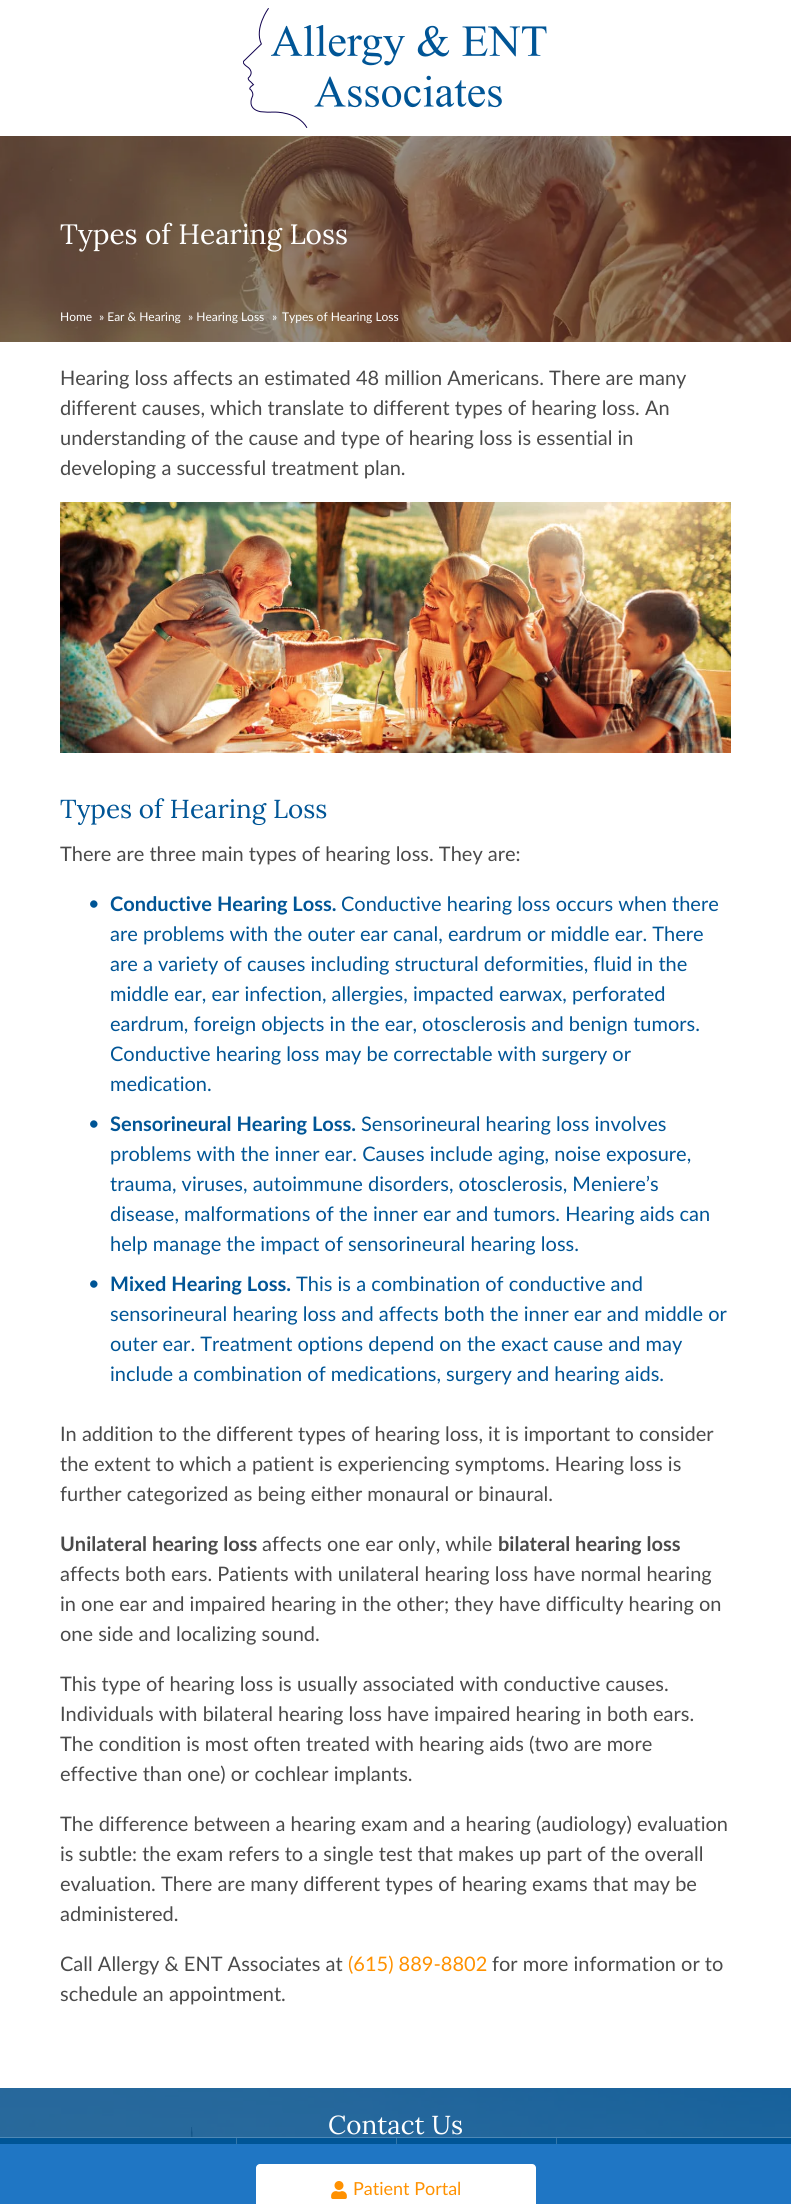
#include <cairo/cairo.h>
#include <math.h>
#include <stddef.h>

typedef struct { double x, y; const char *s; } line_t;
typedef struct { double x, y, w, h; unsigned color; } box_t;
static cairo_t *cr;

static void rgb(unsigned color)
{
	cairo_set_source_rgb(cr, (color >> 16) / 255.0, (color >> 8 & 255) / 255.0, (color & 255) / 255.0);
}

static void rrect(double x, double y, double w, double h, double r)
{
	cairo_new_sub_path(cr);
	cairo_arc(cr, x + w - r, y + h - r, r, 0, M_PI / 2);
	cairo_arc(cr, x + r, y + h - r, r, M_PI / 2, M_PI);
	cairo_arc(cr, x + r, y + r, r, M_PI, 1.5 * M_PI);
	cairo_arc(cr, x + w - r, y + r, r, 1.5 * M_PI, 2 * M_PI);
	cairo_close_path(cr);
}

static void image(const char *path, double x, double y, double w, double h)
{
	cairo_surface_t *image = cairo_image_surface_create_from_png(path);
	cairo_save(cr);
	cairo_set_source_surface(cr, image, x, y);
	cairo_rectangle(cr, x, y, w, h);
	cairo_fill(cr);
	cairo_restore(cr);
	cairo_surface_destroy(image);
}

int main(void) {
	cairo_surface_t *surface = cairo_image_surface_create(CAIRO_FORMAT_RGB24, 791, 2204);
	cr = cairo_create(surface);
	cairo_font_options_t *options = cairo_font_options_create();
	cairo_font_options_set_hint_metrics(options, CAIRO_HINT_METRICS_OFF);
	cairo_font_options_set_hint_style(options, CAIRO_HINT_STYLE_NONE);
	cairo_set_font_options(cr, options);
	cairo_set_miter_limit(cr, 4);
	rgb(0xffffff);
	cairo_paint(cr);
	image("img/1.png", 243, 8, 304, 120);
	image("img/2.png", 0, 136, 791, 206);
	image("img/3.png", 60, 502, 671, 251);
	image("img/4.png", 0, 2088, 791, 49);
	{
		static const box_t items[] = {
			{0, 2138, 791, 6, 0x005596},
			{0, 2137, 791, 1, 0x4d88b6},
			{236, 2138, 1, 6, 0x3377ab},
			{396, 2138, 1, 6, 0x3377ab},
			{556, 2138, 1, 6, 0x3377ab},
			{0, 2144, 791, 60, 0x1f76c4},
		};
		for (size_t i = 0; i < sizeof items / sizeof *items; i++) {
			rgb(items[i].color);
			cairo_rectangle(cr, items[i].x, items[i].y, items[i].w, items[i].h);
			cairo_fill(cr);
		}
	}
	rgb(0xffffff);
	rrect(256, 2164, 280, 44, 4);
	cairo_fill(cr);
	image("img/5.png", 331, 2181, 16, 18);
	cairo_select_font_face(cr, "Lora", CAIRO_FONT_SLANT_NORMAL, CAIRO_FONT_WEIGHT_NORMAL);
	cairo_set_font_size(cr, 28);
	cairo_move_to(cr, 60, 244);
	cairo_show_text(cr, "Types of Hearing Loss");
	cairo_select_font_face(cr, "Lato", CAIRO_FONT_SLANT_NORMAL, CAIRO_FONT_WEIGHT_NORMAL);
	cairo_set_font_size(cr, 12);
	{
		static const line_t items[] = {
			{60, 321, "Home"},
			{99, 321, "» Ear & Hearing"},
			{188, 321, "» Hearing Loss"},
			{272, 321, "»"},
			{282, 321, "Types of Hearing Loss"},
		};
		for (size_t i = 0; i < sizeof items / sizeof *items; i++) {
			cairo_move_to(cr, items[i].x, items[i].y);
			cairo_show_text(cr, items[i].s);
		}
	}
	cairo_set_font_size(cr, 20);
	rgb(0x4a4a4a);
	{
		static const line_t items[] = {
			{60, 385, "Hearing loss affects an estimated 48 million Americans. There are many"},
			{60, 415, "different causes, which translate to different types of hearing loss. An"},
			{60, 445, "understanding of the cause and type of hearing loss is essential in"},
			{60, 475, "developing a successful treatment plan."},
		};
		for (size_t i = 0; i < sizeof items / sizeof *items; i++) {
			cairo_move_to(cr, items[i].x, items[i].y);
			cairo_show_text(cr, items[i].s);
		}
	}
	cairo_select_font_face(cr, "Lora", CAIRO_FONT_SLANT_NORMAL, CAIRO_FONT_WEIGHT_NORMAL);
	cairo_set_font_size(cr, 26);
	rgb(0x005596);
	cairo_move_to(cr, 60, 818);
	cairo_show_text(cr, "Types of Hearing Loss");
	cairo_select_font_face(cr, "Lato", CAIRO_FONT_SLANT_NORMAL, CAIRO_FONT_WEIGHT_NORMAL);
	cairo_set_font_size(cr, 20);
	rgb(0x4a4a4a);
	cairo_move_to(cr, 60, 861);
	cairo_show_text(cr, "There are three main types of hearing loss. They are:");
	rgb(0x005596);
	cairo_move_to(cr, 88, 910);
	cairo_show_text(cr, "•");
	cairo_select_font_face(cr, "Lato", CAIRO_FONT_SLANT_NORMAL, CAIRO_FONT_WEIGHT_BOLD);
	cairo_move_to(cr, 110, 911);
	cairo_show_text(cr, "Conductive Hearing Loss.");
	cairo_select_font_face(cr, "Lato", CAIRO_FONT_SLANT_NORMAL, CAIRO_FONT_WEIGHT_NORMAL);
	{
		static const line_t items[] = {
			{341, 911, "Conductive hearing loss occurs when there"},
			{110, 941, "are problems with the outer ear canal, eardrum or middle ear. There"},
			{110, 971, "are a variety of causes including structural deformities, fluid in the"},
			{110, 1001, "middle ear, ear infection, allergies, impacted earwax, perforated"},
			{110, 1031, "eardrum, foreign objects in the ear, otosclerosis and benign tumors."},
			{110, 1061, "Conductive hearing loss may be correctable with surgery or"},
			{110, 1091, "medication."},
			{88, 1130, "•"},
		};
		for (size_t i = 0; i < sizeof items / sizeof *items; i++) {
			cairo_move_to(cr, items[i].x, items[i].y);
			cairo_show_text(cr, items[i].s);
		}
	}
	cairo_select_font_face(cr, "Lato", CAIRO_FONT_SLANT_NORMAL, CAIRO_FONT_WEIGHT_BOLD);
	cairo_move_to(cr, 110, 1131);
	cairo_show_text(cr, "Sensorineural Hearing Loss.");
	cairo_select_font_face(cr, "Lato", CAIRO_FONT_SLANT_NORMAL, CAIRO_FONT_WEIGHT_NORMAL);
	{
		static const line_t items[] = {
			{361, 1131, "Sensorineural hearing loss involves"},
			{110, 1161, "problems with the inner ear. Causes include aging, noise exposure,"},
			{110, 1191, "trauma, viruses, autoimmune disorders, otosclerosis, Meniere’s"},
			{110, 1221, "disease, malformations of the inner ear and tumors. Hearing aids can"},
			{110, 1251, "help manage the impact of sensorineural hearing loss."},
			{88, 1290, "•"},
		};
		for (size_t i = 0; i < sizeof items / sizeof *items; i++) {
			cairo_move_to(cr, items[i].x, items[i].y);
			cairo_show_text(cr, items[i].s);
		}
	}
	cairo_select_font_face(cr, "Lato", CAIRO_FONT_SLANT_NORMAL, CAIRO_FONT_WEIGHT_BOLD);
	cairo_move_to(cr, 110, 1291);
	cairo_show_text(cr, "Mixed Hearing Loss.");
	cairo_select_font_face(cr, "Lato", CAIRO_FONT_SLANT_NORMAL, CAIRO_FONT_WEIGHT_NORMAL);
	{
		static const line_t items[] = {
			{296, 1291, "This is a combination of conductive and"},
			{110, 1321, "sensorineural hearing loss and affects both the inner ear and middle or"},
			{110, 1351, "outer ear. Treatment options depend on the exact cause and may"},
			{110, 1381, "include a combination of medications, surgery and hearing aids."},
		};
		for (size_t i = 0; i < sizeof items / sizeof *items; i++) {
			cairo_move_to(cr, items[i].x, items[i].y);
			cairo_show_text(cr, items[i].s);
		}
	}
	rgb(0x4a4a4a);
	{
		static const line_t items[] = {
			{60, 1441, "In addition to the different types of hearing loss, it is important to consider"},
			{60, 1471, "the extent to which a patient is experiencing symptoms. Hearing loss is"},
			{60, 1501, "further categorized as being either monaural or binaural."},
		};
		for (size_t i = 0; i < sizeof items / sizeof *items; i++) {
			cairo_move_to(cr, items[i].x, items[i].y);
			cairo_show_text(cr, items[i].s);
		}
	}
	cairo_select_font_face(cr, "Lato", CAIRO_FONT_SLANT_NORMAL, CAIRO_FONT_WEIGHT_BOLD);
	cairo_move_to(cr, 60, 1551);
	cairo_show_text(cr, "Unilateral hearing loss");
	cairo_select_font_face(cr, "Lato", CAIRO_FONT_SLANT_NORMAL, CAIRO_FONT_WEIGHT_NORMAL);
	cairo_move_to(cr, 262, 1551);
	cairo_show_text(cr, "affects one ear only, while");
	cairo_select_font_face(cr, "Lato", CAIRO_FONT_SLANT_NORMAL, CAIRO_FONT_WEIGHT_BOLD);
	cairo_move_to(cr, 498, 1551);
	cairo_show_text(cr, "bilateral hearing loss");
	cairo_select_font_face(cr, "Lato", CAIRO_FONT_SLANT_NORMAL, CAIRO_FONT_WEIGHT_NORMAL);
	{
		static const line_t items[] = {
			{60, 1581, "affects both ears. Patients with unilateral hearing loss have normal hearing"},
			{60, 1611, "in one ear and impaired hearing in the other; they have difficulty hearing on"},
			{60, 1641, "one side and localizing sound."},
			{60, 1691, "This type of hearing loss is usually associated with conductive causes."},
			{60, 1721, "Individuals with bilateral hearing loss have impaired hearing in both ears."},
			{60, 1751, "The condition is most often treated with hearing aids (two are more"},
			{60, 1781, "effective than one) or cochlear implants."},
			{60, 1831, "The difference between a hearing exam and a hearing (audiology) evaluation"},
			{60, 1861, "is subtle: the exam refers to a single test that makes up part of the overall"},
			{60, 1891, "evaluation. There are many different types of hearing exams that may be"},
			{60, 1921, "administered."},
			{60, 1971, "Call Allergy & ENT Associates at"},
		};
		for (size_t i = 0; i < sizeof items / sizeof *items; i++) {
			cairo_move_to(cr, items[i].x, items[i].y);
			cairo_show_text(cr, items[i].s);
		}
	}
	rgb(0xff9100);
	cairo_move_to(cr, 348, 1971);
	cairo_show_text(cr, "(615) 889-8802");
	rgb(0x4a4a4a);
	cairo_move_to(cr, 492, 1971);
	cairo_show_text(cr, "for more information or to");
	cairo_move_to(cr, 60, 2001);
	cairo_show_text(cr, "schedule an appointment.");
	cairo_select_font_face(cr, "Lora", CAIRO_FONT_SLANT_NORMAL, CAIRO_FONT_WEIGHT_NORMAL);
	cairo_set_font_size(cr, 26);
	rgb(0xffffff);
	cairo_move_to(cr, 328, 2134);
	cairo_show_text(cr, "Contact Us");
	cairo_select_font_face(cr, "Lato", CAIRO_FONT_SLANT_NORMAL, CAIRO_FONT_WEIGHT_NORMAL);
	cairo_set_font_size(cr, 18);
	rgb(0xff9100);
	cairo_move_to(cr, 353, 2195);
	cairo_show_text(cr, "Patient Portal");
	cairo_surface_write_to_png(surface, "page.png");
	cairo_font_options_destroy(options);
	cairo_destroy(cr);
	cairo_surface_destroy(surface);
	return 0;
}
